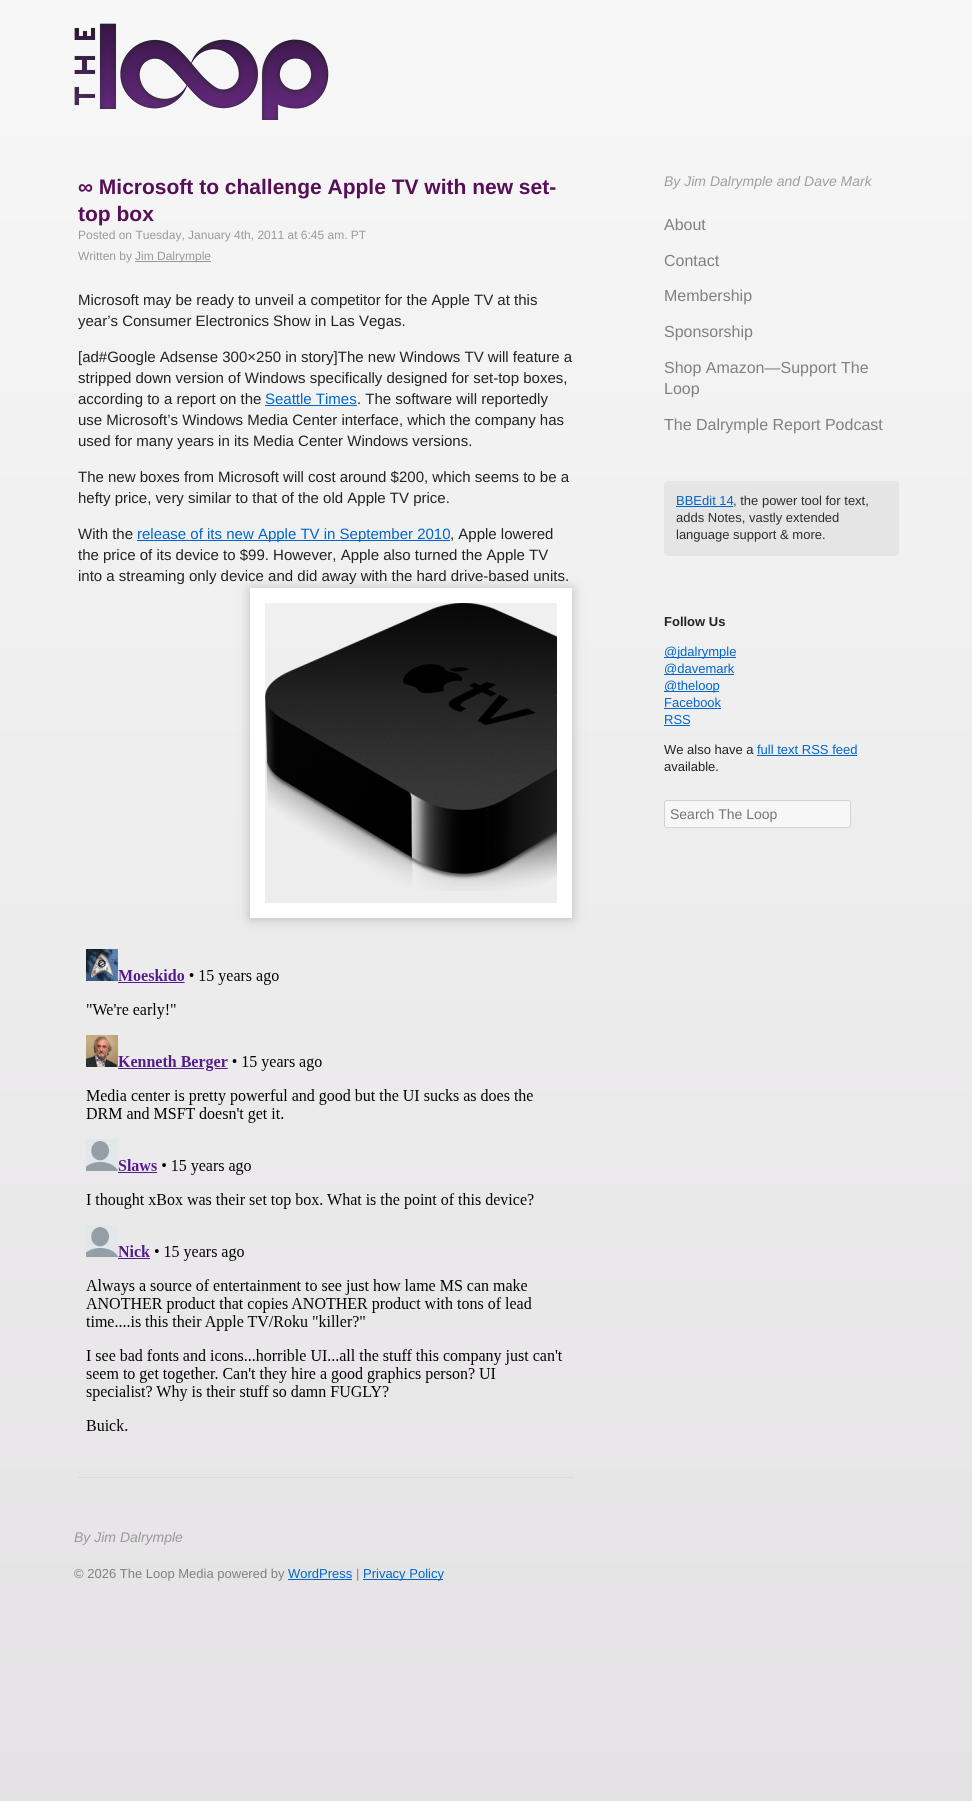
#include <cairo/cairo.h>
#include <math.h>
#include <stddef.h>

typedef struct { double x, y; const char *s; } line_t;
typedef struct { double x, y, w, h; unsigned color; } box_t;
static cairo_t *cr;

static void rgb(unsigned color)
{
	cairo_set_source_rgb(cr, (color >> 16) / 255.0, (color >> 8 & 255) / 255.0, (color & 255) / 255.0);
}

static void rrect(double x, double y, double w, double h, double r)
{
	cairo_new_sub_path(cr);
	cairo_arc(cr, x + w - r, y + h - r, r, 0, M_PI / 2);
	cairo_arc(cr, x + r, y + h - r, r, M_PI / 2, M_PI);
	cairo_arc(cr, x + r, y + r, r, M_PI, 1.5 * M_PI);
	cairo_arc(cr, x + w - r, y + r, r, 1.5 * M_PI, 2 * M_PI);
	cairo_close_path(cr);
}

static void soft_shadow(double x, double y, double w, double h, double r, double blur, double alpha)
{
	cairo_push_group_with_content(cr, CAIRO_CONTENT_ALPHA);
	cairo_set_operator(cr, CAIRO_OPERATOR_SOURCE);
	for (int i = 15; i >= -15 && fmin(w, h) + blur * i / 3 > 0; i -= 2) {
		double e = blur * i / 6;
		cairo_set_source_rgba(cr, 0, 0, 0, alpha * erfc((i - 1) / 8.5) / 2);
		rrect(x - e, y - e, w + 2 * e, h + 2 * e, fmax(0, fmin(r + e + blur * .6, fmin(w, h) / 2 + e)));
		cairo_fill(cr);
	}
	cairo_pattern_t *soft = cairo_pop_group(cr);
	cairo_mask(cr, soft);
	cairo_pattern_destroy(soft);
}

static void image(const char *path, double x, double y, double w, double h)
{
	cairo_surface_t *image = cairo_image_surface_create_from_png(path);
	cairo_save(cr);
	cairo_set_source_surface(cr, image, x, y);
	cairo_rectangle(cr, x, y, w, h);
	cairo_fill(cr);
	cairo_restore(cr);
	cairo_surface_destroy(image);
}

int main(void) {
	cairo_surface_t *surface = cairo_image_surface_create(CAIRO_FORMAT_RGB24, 972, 1801);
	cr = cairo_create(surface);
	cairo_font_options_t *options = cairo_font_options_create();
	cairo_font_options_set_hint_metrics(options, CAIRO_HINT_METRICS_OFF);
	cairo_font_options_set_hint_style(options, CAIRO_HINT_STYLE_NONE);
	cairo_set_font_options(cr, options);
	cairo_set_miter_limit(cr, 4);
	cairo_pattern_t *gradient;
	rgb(0xffffff);
	cairo_paint(cr);
	gradient = cairo_pattern_create_linear(486, 1801, 486, 0);
	cairo_pattern_add_color_stop_rgba(gradient, 0, 0.894, 0.886, 0.894, 1);
	cairo_pattern_add_color_stop_rgba(gradient, 1, 0.969, 0.969, 0.969, 1);
	cairo_set_source(cr, gradient);
	cairo_pattern_destroy(gradient);
	cairo_rectangle(cr, 0, 0, 972, 1801);
	cairo_fill(cr);
	image("img/1.png", 74, 23, 255, 97);
	{
		static const box_t items[] = {
			{78, 1477, 496, 1, 0xdbdbdb},
			{135, 261, 76, 1, 0x999999},
			{265, 405, 92, 1, 0x0066cc},
			{137, 540, 313, 1, 0x0066cc},
		};
		for (size_t i = 0; i < sizeof items / sizeof *items; i++) {
			rgb(items[i].color);
			cairo_rectangle(cr, items[i].x, items[i].y, items[i].w, items[i].h);
			cairo_fill(cr);
		}
	}
	cairo_save(cr);
	cairo_set_fill_rule(cr, CAIRO_FILL_RULE_EVEN_ODD);
	cairo_new_path(cr);
	cairo_move_to(cr, 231, 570);
	cairo_line_to(cr, 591, 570);
	cairo_line_to(cr, 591, 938);
	cairo_line_to(cr, 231, 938);
	cairo_close_path(cr);
	cairo_move_to(cr, 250, 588);
	cairo_line_to(cr, 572, 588);
	cairo_line_to(cr, 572, 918);
	cairo_line_to(cr, 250, 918);
	cairo_close_path(cr);
	cairo_clip(cr);
	rgb(0xbbbbbb);
	soft_shadow(250, 589, 322, 330, 0, 6, 1);
	cairo_restore(cr);
	cairo_rectangle(cr, 257.5, 595.5, 307, 315);
	rgb(0xffffff);
	cairo_set_line_width(cr, 15);
	cairo_stroke(cr);
	image("img/2.png", 265, 603, 292, 288);
	image("img/3.png", 86, 949, 477, 482);
	rgb(0xe5e5e5);
	rrect(664, 481, 235, 75, 4);
	cairo_fill(cr);
	{
		static const box_t items[] = {
			{676, 506, 57, 1, 0x0066cc},
			{664, 657, 72, 1, 0x0066cc},
			{664, 674, 70, 1, 0x0066cc},
			{664, 691, 55, 1, 0x0066cc},
			{664, 708, 57, 1, 0x0066cc},
			{664, 725, 26, 1, 0x0066cc},
			{757, 755, 100, 1, 0x0066cc},
		};
		for (size_t i = 0; i < sizeof items / sizeof *items; i++) {
			rgb(items[i].color);
			cairo_rectangle(cr, items[i].x, items[i].y, items[i].w, items[i].h);
			cairo_fill(cr);
		}
	}
	rgb(0xf7f7f7);
	rrect(664, 800, 187, 28, 3);
	cairo_fill(cr);
	rrect(664.5, 800.5, 186, 27, 2.5);
	cairo_set_source_rgba(cr, 0, 0, 0, 0.15);
	cairo_set_line_width(cr, 1);
	cairo_stroke(cr);
	rgb(0x0066cc);
	cairo_rectangle(cr, 288, 1579, 64, 1);
	cairo_fill(cr);
	cairo_rectangle(cr, 363, 1579, 80, 1);
	cairo_fill(cr);
	cairo_select_font_face(cr, "Liberation Sans", CAIRO_FONT_SLANT_NORMAL, CAIRO_FONT_WEIGHT_BOLD);
	cairo_set_font_size(cr, 21);
	rgb(0x570f57);
	cairo_move_to(cr, 78, 194);
	cairo_show_text(cr, "∞ Microsoft to challenge Apple TV with new set-");
	cairo_move_to(cr, 78, 221);
	cairo_show_text(cr, "top box");
	cairo_select_font_face(cr, "Liberation Sans", CAIRO_FONT_SLANT_NORMAL, CAIRO_FONT_WEIGHT_NORMAL);
	cairo_set_font_size(cr, 12);
	rgb(0x999999);
	{
		static const line_t items[] = {
			{78, 239, "Posted on Tuesday, January 4th, 2011 at 6:45 am. PT"},
			{78, 260, "Written by"},
			{135, 260, "Jim Dalrymple"},
		};
		for (size_t i = 0; i < sizeof items / sizeof *items; i++) {
			cairo_move_to(cr, items[i].x, items[i].y);
			cairo_show_text(cr, items[i].s);
		}
	}
	cairo_set_font_size(cr, 15);
	rgb(0x222222);
	{
		static const line_t items[] = {
			{78, 305, "Microsoft may be ready to unveil a competitor for the Apple TV at this"},
			{78, 326, "year’s Consumer Electronics Show in Las Vegas."},
			{78, 362, "[ad#Google Adsense 300×250 in story]The new Windows TV will feature a"},
			{78, 383, "stripped down version of Windows specifically designed for set-top boxes,"},
			{78, 404, "according to a report on the"},
		};
		for (size_t i = 0; i < sizeof items / sizeof *items; i++) {
			cairo_move_to(cr, items[i].x, items[i].y);
			cairo_show_text(cr, items[i].s);
		}
	}
	rgb(0x0066cc);
	cairo_move_to(cr, 265, 404);
	cairo_show_text(cr, "Seattle Times");
	rgb(0x222222);
	{
		static const line_t items[] = {
			{357, 404, ". The software will reportedly"},
			{78, 425, "use Microsoft’s Windows Media Center interface, which the company has"},
			{78, 446, "used for many years in its Media Center Windows versions."},
			{78, 482, "The new boxes from Microsoft will cost around $200, which seems to be a"},
			{78, 503, "hefty price, very similar to that of the old Apple TV price."},
			{78, 539, "With the"},
		};
		for (size_t i = 0; i < sizeof items / sizeof *items; i++) {
			cairo_move_to(cr, items[i].x, items[i].y);
			cairo_show_text(cr, items[i].s);
		}
	}
	rgb(0x0066cc);
	cairo_move_to(cr, 137, 539);
	cairo_show_text(cr, "release of its new Apple TV in September 2010");
	rgb(0x222222);
	{
		static const line_t items[] = {
			{450, 539, ", Apple lowered"},
			{78, 560, "the price of its device to $99. However, Apple also turned the Apple TV"},
			{78, 581, "into a streaming only device and did away with the hard drive-based units."},
		};
		for (size_t i = 0; i < sizeof items / sizeof *items; i++) {
			cairo_move_to(cr, items[i].x, items[i].y);
			cairo_show_text(cr, items[i].s);
		}
	}
	cairo_select_font_face(cr, "Liberation Sans", CAIRO_FONT_SLANT_ITALIC, CAIRO_FONT_WEIGHT_NORMAL);
	cairo_set_font_size(cr, 14);
	rgb(0x9f9f9f);
	cairo_move_to(cr, 664, 186);
	cairo_show_text(cr, "By Jim Dalrymple and Dave Mark");
	cairo_select_font_face(cr, "Liberation Sans", CAIRO_FONT_SLANT_NORMAL, CAIRO_FONT_WEIGHT_NORMAL);
	cairo_set_font_size(cr, 16);
	rgb(0x808080);
	{
		static const line_t items[] = {
			{664, 230, "About"},
			{664, 266, "Contact"},
			{664, 301, "Membership"},
			{664, 337, "Sponsorship"},
			{664, 373, "Shop Amazon—Support The"},
			{664, 394, "Loop"},
			{664, 430, "The Dalrymple Report Podcast"},
		};
		for (size_t i = 0; i < sizeof items / sizeof *items; i++) {
			cairo_move_to(cr, items[i].x, items[i].y);
			cairo_show_text(cr, items[i].s);
		}
	}
	cairo_set_font_size(cr, 13);
	rgb(0x0066cc);
	cairo_move_to(cr, 676, 505);
	cairo_show_text(cr, "BBEdit 14");
	rgb(0x2e2e2e);
	{
		static const line_t items[] = {
			{733, 505, ", the power tool for text,"},
			{676, 522, "adds Notes, vastly extended"},
			{676, 539, "language support & more."},
		};
		for (size_t i = 0; i < sizeof items / sizeof *items; i++) {
			cairo_move_to(cr, items[i].x, items[i].y);
			cairo_show_text(cr, items[i].s);
		}
	}
	cairo_select_font_face(cr, "Liberation Sans", CAIRO_FONT_SLANT_NORMAL, CAIRO_FONT_WEIGHT_BOLD);
	rgb(0x222222);
	cairo_move_to(cr, 664, 626);
	cairo_show_text(cr, "Follow Us");
	cairo_select_font_face(cr, "Liberation Sans", CAIRO_FONT_SLANT_NORMAL, CAIRO_FONT_WEIGHT_NORMAL);
	rgb(0x0066cc);
	{
		static const line_t items[] = {
			{664, 656, "@jdalrymple"},
			{664, 673, "@davemark"},
			{664, 690, "@theloop"},
			{664, 707, "Facebook"},
			{664, 724, "RSS"},
		};
		for (size_t i = 0; i < sizeof items / sizeof *items; i++) {
			cairo_move_to(cr, items[i].x, items[i].y);
			cairo_show_text(cr, items[i].s);
		}
	}
	rgb(0x222222);
	cairo_move_to(cr, 664, 754);
	cairo_show_text(cr, "We also have a");
	rgb(0x0066cc);
	cairo_move_to(cr, 757, 754);
	cairo_show_text(cr, "full text RSS feed");
	rgb(0x222222);
	cairo_move_to(cr, 664, 771);
	cairo_show_text(cr, "available.");
	cairo_set_font_size(cr, 14);
	rgb(0x757575);
	cairo_move_to(cr, 670, 819);
	cairo_show_text(cr, "Search The Loop");
	cairo_select_font_face(cr, "Liberation Sans", CAIRO_FONT_SLANT_ITALIC, CAIRO_FONT_WEIGHT_NORMAL);
	rgb(0x999999);
	cairo_move_to(cr, 74, 1542);
	cairo_show_text(cr, "By Jim Dalrymple");
	cairo_select_font_face(cr, "Liberation Sans", CAIRO_FONT_SLANT_NORMAL, CAIRO_FONT_WEIGHT_NORMAL);
	cairo_set_font_size(cr, 13);
	rgb(0x808080);
	cairo_move_to(cr, 74, 1578);
	cairo_show_text(cr, "© 2026 The Loop Media powered by");
	rgb(0x0066cc);
	cairo_move_to(cr, 288, 1578);
	cairo_show_text(cr, "WordPress");
	rgb(0x808080);
	cairo_move_to(cr, 356, 1578);
	cairo_show_text(cr, "|");
	rgb(0x0066cc);
	cairo_move_to(cr, 363, 1578);
	cairo_show_text(cr, "Privacy Policy");
	cairo_surface_write_to_png(surface, "page.png");
	cairo_font_options_destroy(options);
	cairo_destroy(cr);
	cairo_surface_destroy(surface);
	return 0;
}
